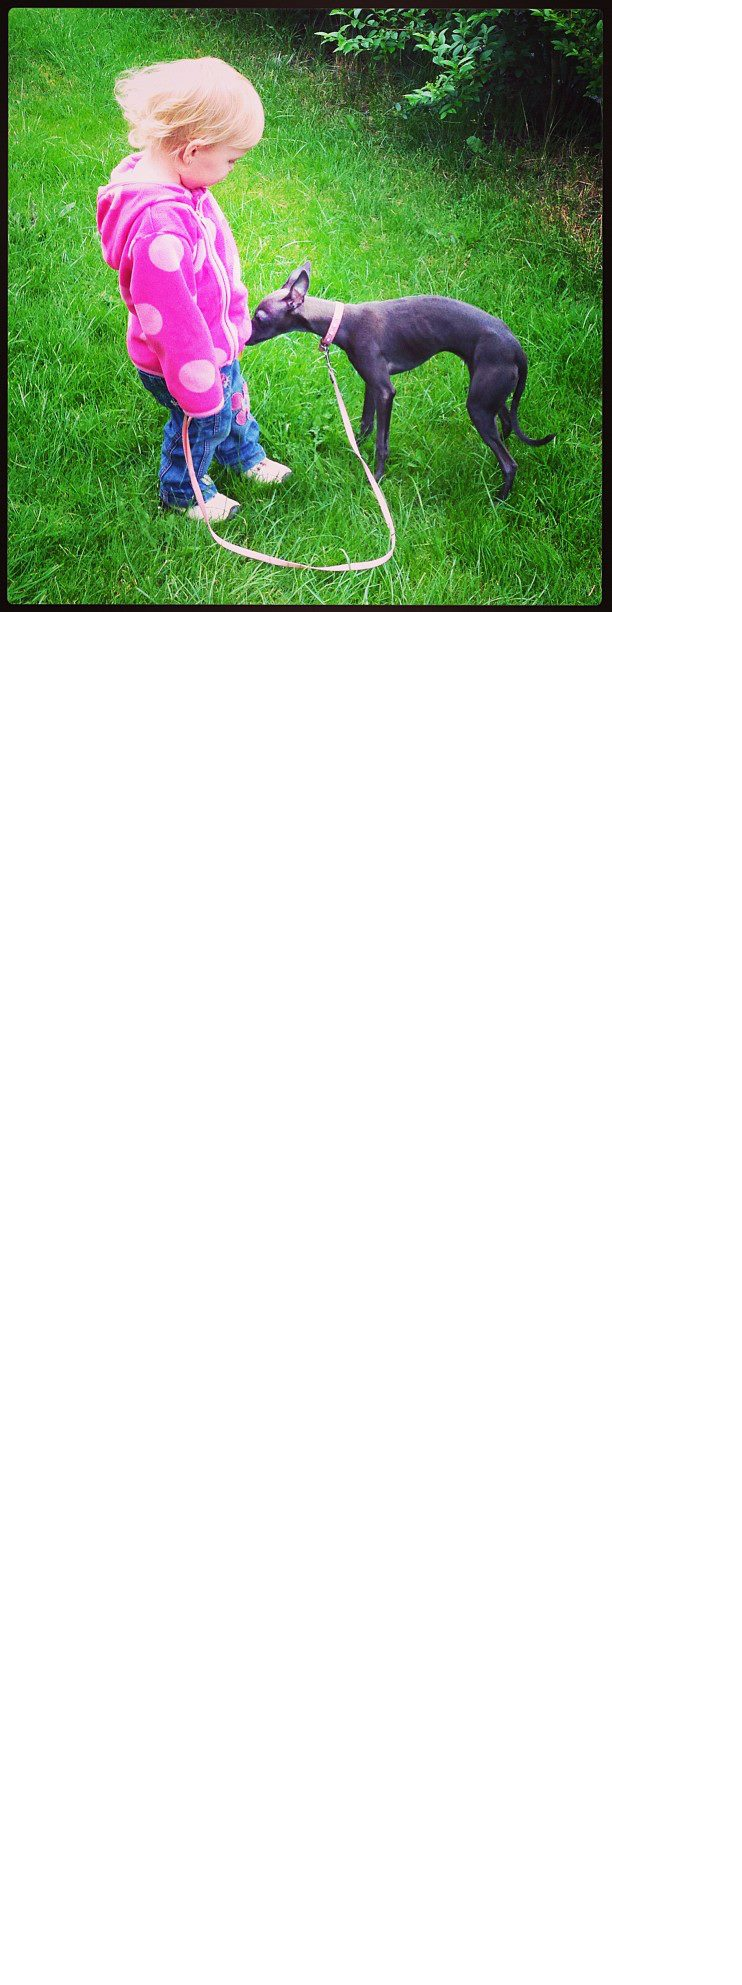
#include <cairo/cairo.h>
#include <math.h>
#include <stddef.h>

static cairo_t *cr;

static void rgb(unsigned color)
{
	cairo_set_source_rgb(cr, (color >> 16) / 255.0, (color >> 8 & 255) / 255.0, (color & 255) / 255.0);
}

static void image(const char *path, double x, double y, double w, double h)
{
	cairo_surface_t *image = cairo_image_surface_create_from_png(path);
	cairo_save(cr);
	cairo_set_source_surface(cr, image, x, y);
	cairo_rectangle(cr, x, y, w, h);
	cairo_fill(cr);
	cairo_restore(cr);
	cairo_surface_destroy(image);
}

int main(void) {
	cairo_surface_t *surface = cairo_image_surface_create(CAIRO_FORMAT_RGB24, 742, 1985);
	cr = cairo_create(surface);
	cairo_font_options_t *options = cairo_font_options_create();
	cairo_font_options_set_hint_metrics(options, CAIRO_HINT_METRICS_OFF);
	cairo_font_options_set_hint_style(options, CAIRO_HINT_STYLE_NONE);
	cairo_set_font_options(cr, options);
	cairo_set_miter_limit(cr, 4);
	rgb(0xffffff);
	cairo_paint(cr);
	image("img/1.png", 0, 0, 612, 612);
	cairo_surface_write_to_png(surface, "page.png");
	cairo_font_options_destroy(options);
	cairo_destroy(cr);
	cairo_surface_destroy(surface);
	return 0;
}
